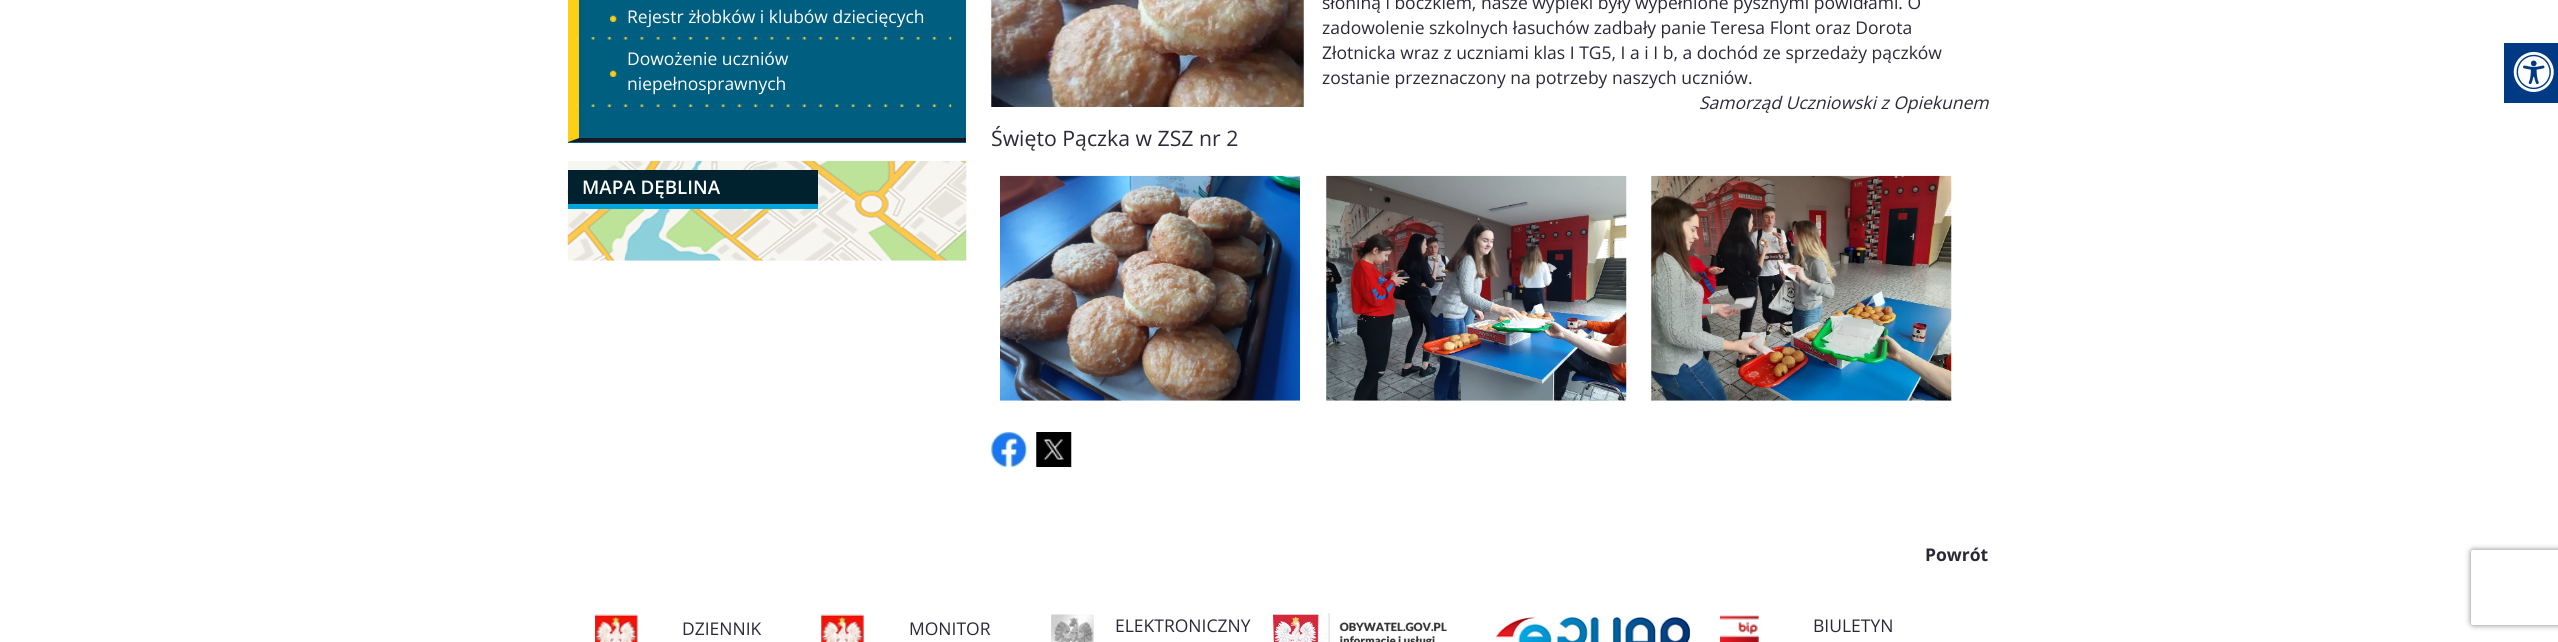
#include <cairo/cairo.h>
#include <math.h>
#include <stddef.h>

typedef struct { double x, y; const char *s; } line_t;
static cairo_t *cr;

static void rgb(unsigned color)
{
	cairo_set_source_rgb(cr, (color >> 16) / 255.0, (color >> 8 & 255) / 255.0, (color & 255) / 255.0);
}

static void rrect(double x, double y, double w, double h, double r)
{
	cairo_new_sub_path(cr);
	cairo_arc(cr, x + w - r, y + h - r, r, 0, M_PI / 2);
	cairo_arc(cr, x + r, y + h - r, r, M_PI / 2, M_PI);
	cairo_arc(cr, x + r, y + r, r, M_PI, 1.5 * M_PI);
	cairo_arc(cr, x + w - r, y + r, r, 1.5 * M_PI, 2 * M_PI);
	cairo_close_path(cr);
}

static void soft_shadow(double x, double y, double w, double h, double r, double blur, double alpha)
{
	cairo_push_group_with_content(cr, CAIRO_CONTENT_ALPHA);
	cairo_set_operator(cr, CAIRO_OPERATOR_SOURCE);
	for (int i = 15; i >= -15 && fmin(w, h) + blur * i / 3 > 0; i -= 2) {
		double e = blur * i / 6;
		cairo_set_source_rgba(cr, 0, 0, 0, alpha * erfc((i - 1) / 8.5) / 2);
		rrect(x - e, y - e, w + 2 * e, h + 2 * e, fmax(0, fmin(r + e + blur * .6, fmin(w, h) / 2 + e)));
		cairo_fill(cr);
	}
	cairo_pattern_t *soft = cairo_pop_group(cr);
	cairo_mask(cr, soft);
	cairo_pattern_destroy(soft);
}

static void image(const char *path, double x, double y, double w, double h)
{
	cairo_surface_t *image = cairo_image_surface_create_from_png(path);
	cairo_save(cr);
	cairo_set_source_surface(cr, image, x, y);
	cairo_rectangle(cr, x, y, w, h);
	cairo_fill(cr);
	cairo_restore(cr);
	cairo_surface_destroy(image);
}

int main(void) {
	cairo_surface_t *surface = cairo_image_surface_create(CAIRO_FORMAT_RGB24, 2558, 642);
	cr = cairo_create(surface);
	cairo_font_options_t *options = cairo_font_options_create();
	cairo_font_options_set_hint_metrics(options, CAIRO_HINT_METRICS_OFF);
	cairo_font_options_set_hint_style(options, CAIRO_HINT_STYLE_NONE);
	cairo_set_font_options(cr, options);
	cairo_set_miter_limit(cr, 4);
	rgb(0xffffff);
	cairo_paint(cr);
	rgb(0x005e80);
	cairo_rectangle(cr, 568, 0, 398, 143);
	cairo_fill(cr);
	rgb(0x1a1822);
	cairo_new_path(cr);
	cairo_move_to(cr, 966, 142);
	cairo_line_to(cr, 568, 142);
	cairo_line_to(cr, 579, 138);
	cairo_line_to(cr, 966, 138);
	cairo_close_path(cr);
	cairo_fill(cr);
	rgb(0xffcf15);
	cairo_new_path(cr);
	cairo_move_to(cr, 568, 142);
	cairo_line_to(cr, 568, -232);
	cairo_line_to(cr, 579, -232);
	cairo_line_to(cr, 579, 138);
	cairo_close_path(cr);
	cairo_fill(cr);
	image("img/1.png", 575, 15, 377, 25);
	image("img/2.png", 575, 70, 377, 37);
	image("img/3.png", 567, 160, 400, 101);
	rgb(0x00222e);
	cairo_rectangle(cr, 568, 170, 250, 34);
	cairo_fill(cr);
	rgb(0x00a5de);
	cairo_rectangle(cr, 568, 204, 250, 5);
	cairo_fill(cr);
	image("img/4.png", 991, 0, 313, 107);
	image("img/5.png", 1000, 175, 300, 226);
	image("img/6.png", 1326, 175, 301, 226);
	image("img/7.png", 1651, 175, 301, 226);
	image("img/8.png", 991, 432, 36, 35);
	image("img/9.png", 1036, 432, 36, 35);
	image("img/10.png", 595, 614, 43, 28);
	image("img/11.png", 821, 614, 43, 28);
	image("img/12.png", 1051, 614, 43, 28);
	image("img/13.png", 1273, 613, 174, 29);
	image("img/14.png", 1496, 617, 194, 25);
	image("img/15.png", 1720, 615, 39, 27);
	rgb(0x003984);
	cairo_rectangle(cr, 2504, 43, 54, 60);
	cairo_fill(cr);
	image("img/16.png", 2513, 52, 41, 40);
	cairo_save(cr);
	cairo_set_fill_rule(cr, CAIRO_FILL_RULE_EVEN_ODD);
	cairo_new_path(cr);
	cairo_move_to(cr, 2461, 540);
	cairo_line_to(cr, 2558, 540);
	cairo_line_to(cr, 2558, 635);
	cairo_line_to(cr, 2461, 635);
	cairo_close_path(cr);
	cairo_move_to(cr, 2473.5, 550);
	cairo_line_to(cr, 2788.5, 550);
	cairo_curve_to(cr, 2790, 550, 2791, 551, 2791, 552.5);
	cairo_line_to(cr, 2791, 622.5);
	cairo_curve_to(cr, 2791, 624, 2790, 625, 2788.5, 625);
	cairo_line_to(cr, 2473.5, 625);
	cairo_curve_to(cr, 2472, 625, 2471, 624, 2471, 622.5);
	cairo_line_to(cr, 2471, 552.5);
	cairo_curve_to(cr, 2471, 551, 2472, 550, 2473.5, 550);
	cairo_close_path(cr);
	cairo_clip(cr);
	rgb(0x808080);
	soft_shadow(2471, 550, 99, 75, 2.5, 3, 1);
	cairo_restore(cr);
	cairo_select_font_face(cr, "Open Sans", CAIRO_FONT_SLANT_NORMAL, CAIRO_FONT_WEIGHT_NORMAL);
	cairo_set_font_size(cr, 17.5);
	rgb(0xffffff);
	{
		static const line_t items[] = {
			{627, 23, "Rejestr żłobków i klubów dziecięcych"},
			{627, 65, "Dowożenie uczniów"},
			{627, 90, "niepełnosprawnych"},
		};
		for (size_t i = 0; i < sizeof items / sizeof *items; i++) {
			cairo_move_to(cr, items[i].x, items[i].y);
			cairo_show_text(cr, items[i].s);
		}
	}
	cairo_select_font_face(cr, "Open Sans SemiBold", CAIRO_FONT_SLANT_NORMAL, CAIRO_FONT_WEIGHT_NORMAL);
	cairo_set_font_size(cr, 18.75);
	cairo_move_to(cr, 582, 194);
	cairo_show_text(cr, "MAPA DĘBLINA");
	cairo_select_font_face(cr, "Open Sans", CAIRO_FONT_SLANT_NORMAL, CAIRO_FONT_WEIGHT_NORMAL);
	cairo_set_font_size(cr, 17.5);
	rgb(0x2b2937);
	{
		static const line_t items[] = {
			{1322, 9, "słoniną i boczkiem, nasze wypieki były wypełnione pysznymi powidłami. O"},
			{1322, 34, "zadowolenie szkolnych łasuchów zadbały panie Teresa Flont oraz Dorota"},
			{1322, 59, "Złotnicka wraz z uczniami klas I TG5, I a i I b, a dochód ze sprzedaży pączków"},
			{1322, 84, "zostanie przeznaczony na potrzeby naszych uczniów."},
		};
		for (size_t i = 0; i < sizeof items / sizeof *items; i++) {
			cairo_move_to(cr, items[i].x, items[i].y);
			cairo_show_text(cr, items[i].s);
		}
	}
	cairo_select_font_face(cr, "Open Sans", CAIRO_FONT_SLANT_ITALIC, CAIRO_FONT_WEIGHT_NORMAL);
	cairo_move_to(cr, 1699, 109);
	cairo_show_text(cr, "Samorząd Uczniowski z Opiekunem");
	cairo_select_font_face(cr, "Open Sans", CAIRO_FONT_SLANT_NORMAL, CAIRO_FONT_WEIGHT_NORMAL);
	cairo_set_font_size(cr, 21.25);
	cairo_move_to(cr, 991, 146);
	cairo_show_text(cr, "Święto Pączka w ZSZ nr 2");
	cairo_select_font_face(cr, "Open Sans", CAIRO_FONT_SLANT_NORMAL, CAIRO_FONT_WEIGHT_BOLD);
	cairo_set_font_size(cr, 17.5);
	cairo_move_to(cr, 1925, 561);
	cairo_show_text(cr, "Powrót");
	cairo_select_font_face(cr, "Open Sans", CAIRO_FONT_SLANT_NORMAL, CAIRO_FONT_WEIGHT_NORMAL);
	{
		static const line_t items[] = {
			{682, 635, "DZIENNIK"},
			{909, 635, "MONITOR"},
			{1115, 632, "ELEKTRONICZNY"},
			{1813, 632, "BIULETYN"},
		};
		for (size_t i = 0; i < sizeof items / sizeof *items; i++) {
			cairo_move_to(cr, items[i].x, items[i].y);
			cairo_show_text(cr, items[i].s);
		}
	}
	cairo_surface_write_to_png(surface, "page.png");
	cairo_font_options_destroy(options);
	cairo_destroy(cr);
	cairo_surface_destroy(surface);
	return 0;
}
